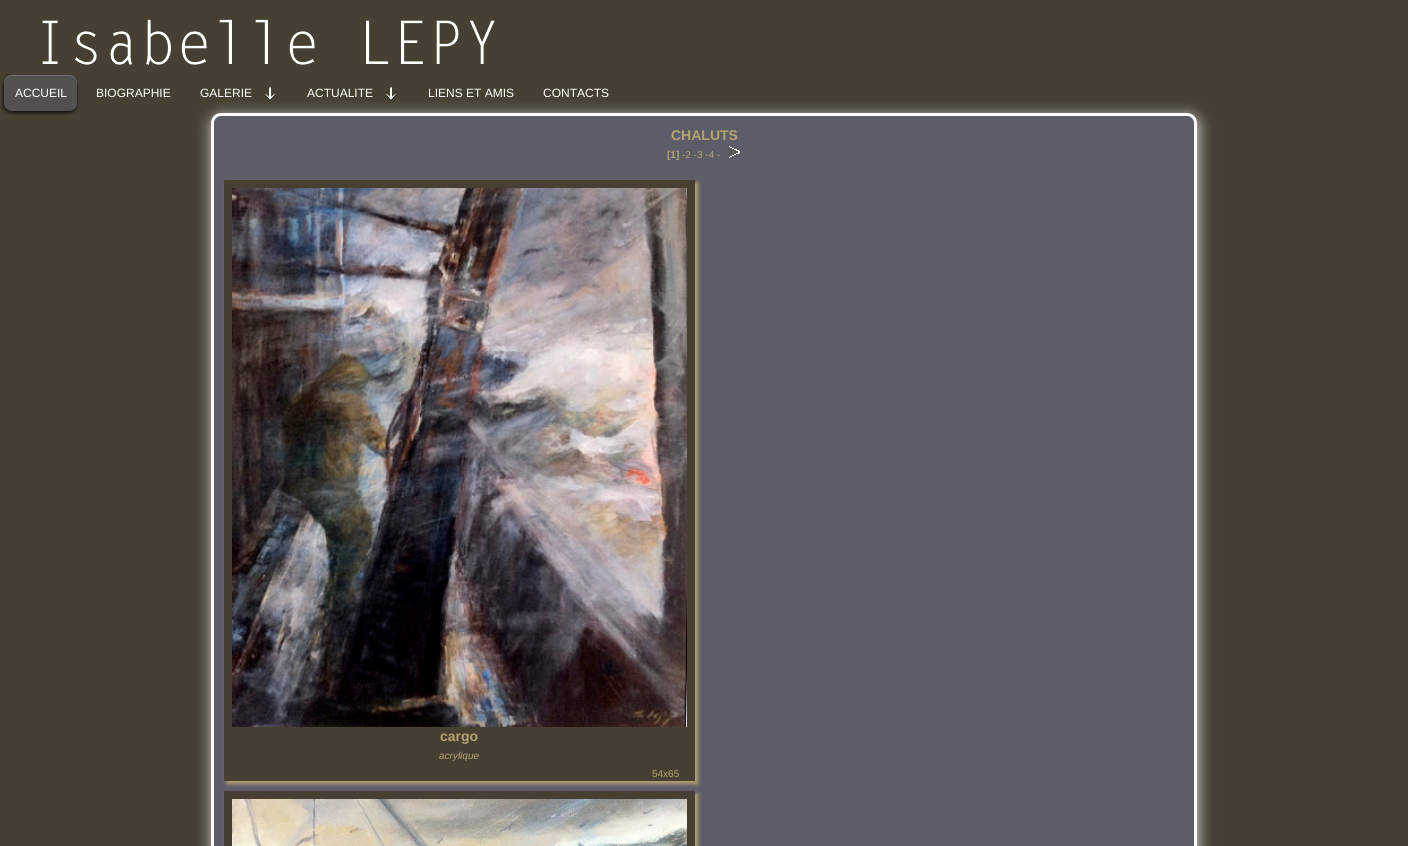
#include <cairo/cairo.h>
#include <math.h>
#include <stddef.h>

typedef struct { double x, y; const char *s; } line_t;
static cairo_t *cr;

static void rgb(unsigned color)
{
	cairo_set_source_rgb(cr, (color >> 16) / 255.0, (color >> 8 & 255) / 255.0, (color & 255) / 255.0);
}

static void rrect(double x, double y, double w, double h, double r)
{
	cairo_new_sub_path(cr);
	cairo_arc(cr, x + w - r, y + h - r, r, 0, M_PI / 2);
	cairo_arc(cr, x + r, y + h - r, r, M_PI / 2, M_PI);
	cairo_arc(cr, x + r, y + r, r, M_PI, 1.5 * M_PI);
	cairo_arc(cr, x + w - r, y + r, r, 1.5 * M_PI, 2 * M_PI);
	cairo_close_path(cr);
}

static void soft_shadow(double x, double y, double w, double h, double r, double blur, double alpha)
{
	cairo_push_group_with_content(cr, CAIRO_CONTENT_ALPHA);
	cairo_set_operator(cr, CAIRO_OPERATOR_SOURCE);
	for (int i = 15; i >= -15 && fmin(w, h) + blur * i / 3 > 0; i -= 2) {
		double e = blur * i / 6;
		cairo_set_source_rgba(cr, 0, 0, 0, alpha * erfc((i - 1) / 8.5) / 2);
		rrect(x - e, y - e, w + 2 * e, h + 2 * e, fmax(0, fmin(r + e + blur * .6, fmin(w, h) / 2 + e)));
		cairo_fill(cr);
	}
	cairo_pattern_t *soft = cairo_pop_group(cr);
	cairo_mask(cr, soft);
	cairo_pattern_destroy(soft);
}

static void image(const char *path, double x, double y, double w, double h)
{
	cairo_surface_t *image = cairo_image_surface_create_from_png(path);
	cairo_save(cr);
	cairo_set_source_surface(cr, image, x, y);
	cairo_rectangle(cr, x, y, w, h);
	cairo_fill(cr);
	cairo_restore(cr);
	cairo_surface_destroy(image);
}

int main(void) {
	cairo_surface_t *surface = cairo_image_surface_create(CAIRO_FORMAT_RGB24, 1408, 846);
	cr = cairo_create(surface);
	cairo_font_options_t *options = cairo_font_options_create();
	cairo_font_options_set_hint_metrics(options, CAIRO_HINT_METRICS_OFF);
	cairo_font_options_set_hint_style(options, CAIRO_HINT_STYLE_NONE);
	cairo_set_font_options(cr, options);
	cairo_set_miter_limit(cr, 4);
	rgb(0x463f32);
	cairo_paint(cr);
	image("img/1.png", 42, 19, 453, 46);
	image("img/2.png", 1, 75, 12, 40);
	image("img/3.png", 13, 75, 66, 40);
	rgb(0xdddddd);
	soft_shadow(212, 116, 986, 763, 10, 7.5, 1);
	image("img/4.png", 265, 87, 11, 14);
	image("img/5.png", 386, 87, 10, 14);
	rgb(0x5d5d6a);
	rrect(212.5, 114.5, 983, 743, 8.5);
	cairo_fill_preserve(cr);
	rgb(0xffffff);
	cairo_set_line_width(cr, 3);
	cairo_stroke(cr);
	image("img/6.png", 729, 146, 11, 12);
	rgb(0xb4a46e);
	soft_shadow(227, 183, 471, 601, 0, 2, 1);
	rgb(0x463f32);
	cairo_rectangle(cr, 224, 180, 471, 601);
	cairo_fill(cr);
	image("img/7.png", 232, 188, 455, 539);
	rgb(0xb4a46e);
	soft_shadow(227, 794, 471, 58, 0, 2, 1);
	rgb(0x463f32);
	cairo_rectangle(cr, 224, 791, 471, 55);
	cairo_fill(cr);
	image("img/8.png", 232, 799, 455, 47);
	cairo_select_font_face(cr, "Liberation Sans", CAIRO_FONT_SLANT_NORMAL, CAIRO_FONT_WEIGHT_NORMAL);
	cairo_set_font_size(cr, 12);
	rgb(0xffffff);
	{
		static const line_t items[] = {
			{15, 97, "ACCUEIL"},
			{96, 97, "BIOGRAPHIE"},
			{200, 97, "GALERIE"},
			{307, 97, "ACTUALITE"},
			{428, 97, "LIENS ET AMIS"},
			{543, 97, "CONTACTS"},
		};
		for (size_t i = 0; i < sizeof items / sizeof *items; i++) {
			cairo_move_to(cr, items[i].x, items[i].y);
			cairo_show_text(cr, items[i].s);
		}
	}
	cairo_select_font_face(cr, "Liberation Sans", CAIRO_FONT_SLANT_NORMAL, CAIRO_FONT_WEIGHT_BOLD);
	cairo_set_font_size(cr, 14);
	rgb(0xb4a46e);
	cairo_move_to(cr, 671, 140);
	cairo_show_text(cr, "CHALUTS");
	cairo_set_font_size(cr, 10);
	cairo_move_to(cr, 667, 158);
	cairo_show_text(cr, "[1]");
	cairo_select_font_face(cr, "Liberation Sans", CAIRO_FONT_SLANT_NORMAL, CAIRO_FONT_WEIGHT_NORMAL);
	cairo_move_to(cr, 682, 158);
	cairo_show_text(cr, "-2 -3 -4 -");
	cairo_select_font_face(cr, "Liberation Sans", CAIRO_FONT_SLANT_NORMAL, CAIRO_FONT_WEIGHT_BOLD);
	cairo_set_font_size(cr, 14);
	cairo_move_to(cr, 440, 741);
	cairo_show_text(cr, "cargo");
	cairo_select_font_face(cr, "Liberation Sans", CAIRO_FONT_SLANT_ITALIC, CAIRO_FONT_WEIGHT_NORMAL);
	cairo_set_font_size(cr, 10);
	cairo_move_to(cr, 439, 759);
	cairo_show_text(cr, "acrylique");
	cairo_select_font_face(cr, "Liberation Sans", CAIRO_FONT_SLANT_NORMAL, CAIRO_FONT_WEIGHT_NORMAL);
	cairo_move_to(cr, 652, 777);
	cairo_show_text(cr, "54x65");
	cairo_surface_write_to_png(surface, "page.png");
	cairo_font_options_destroy(options);
	cairo_destroy(cr);
	cairo_surface_destroy(surface);
	return 0;
}
